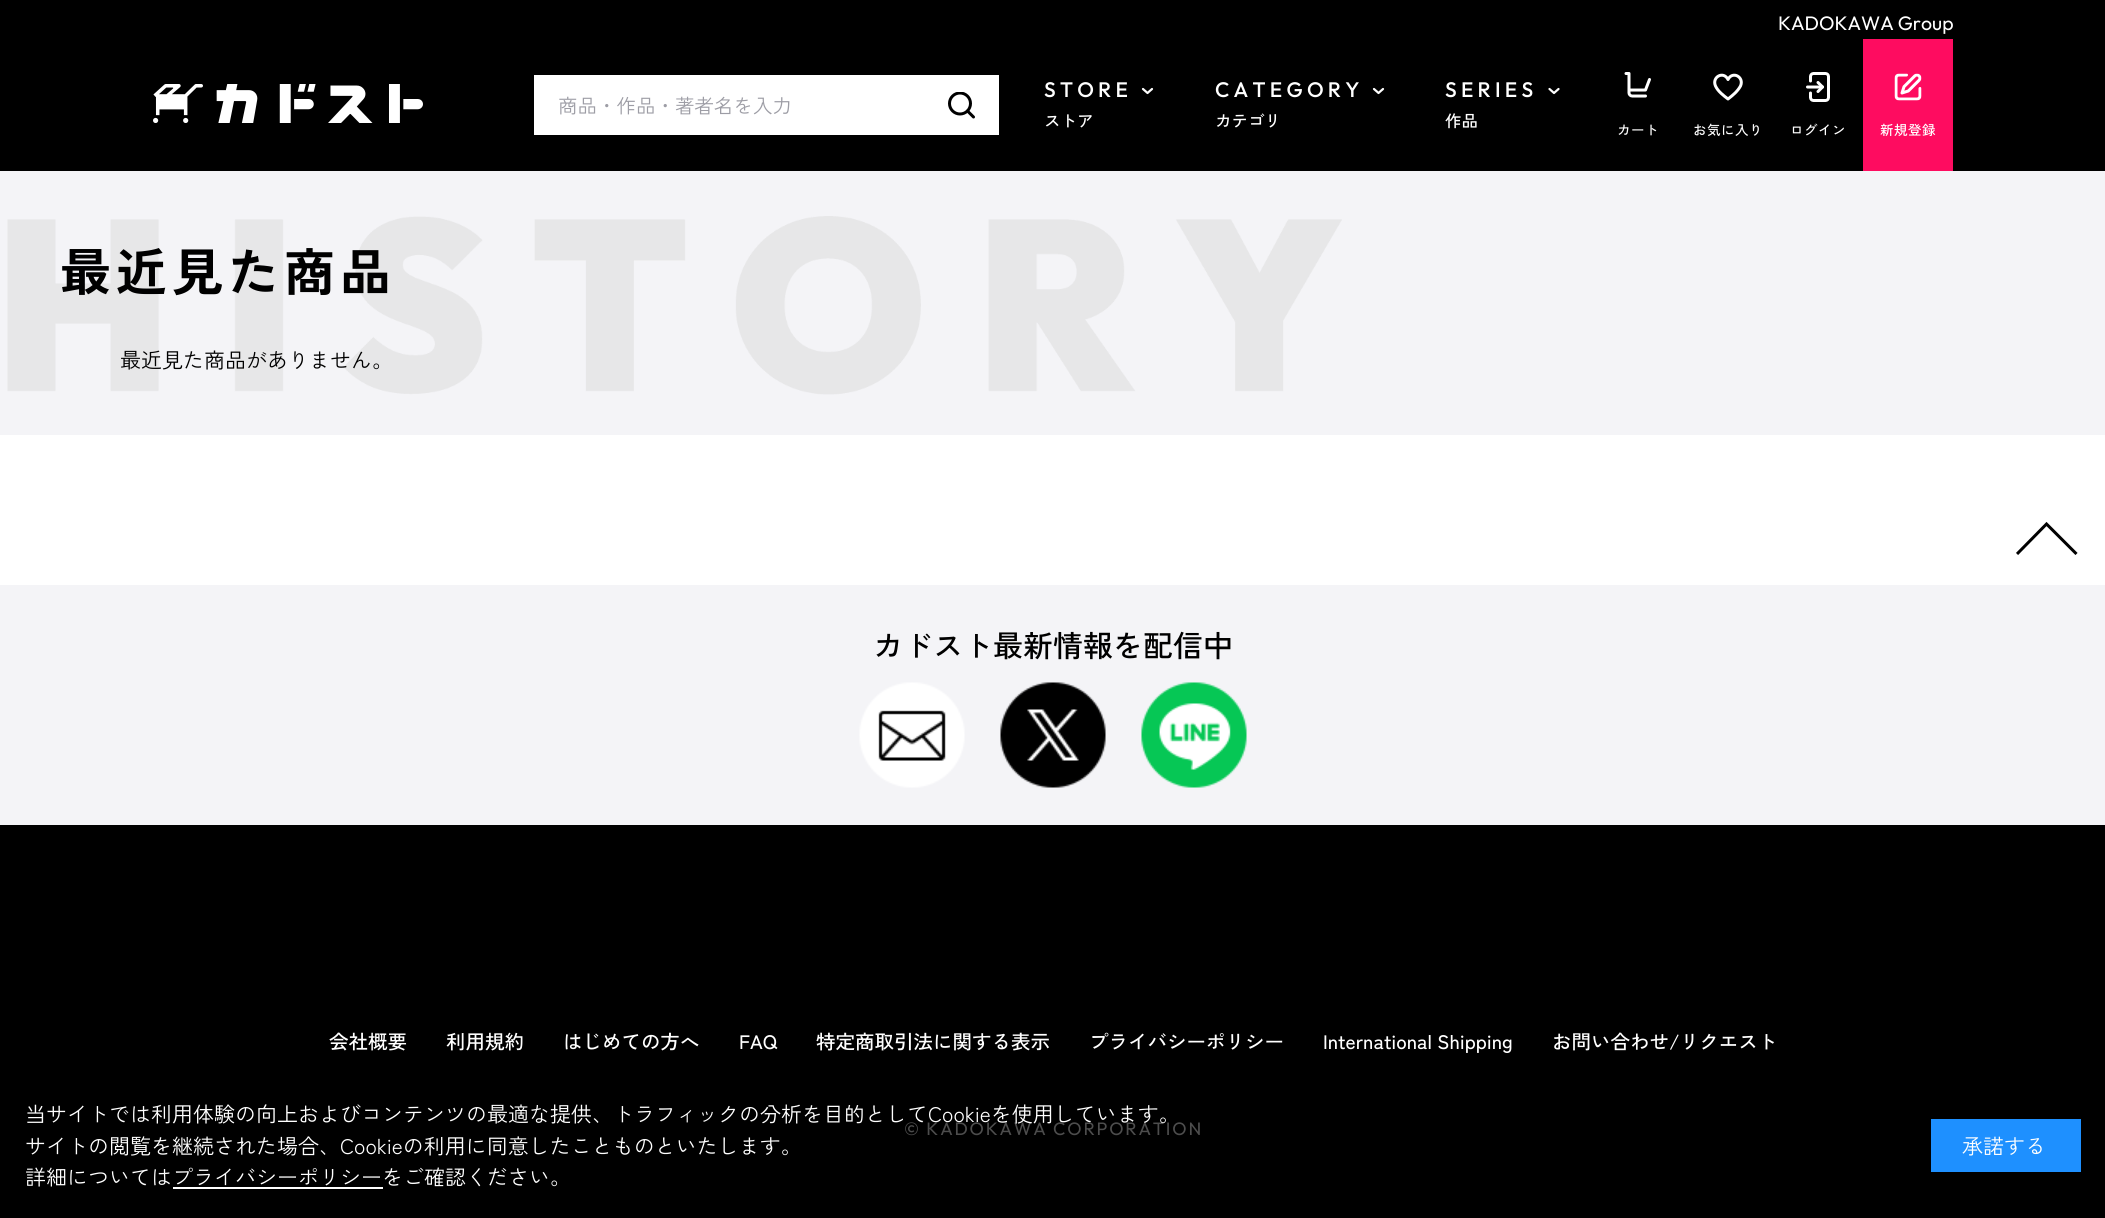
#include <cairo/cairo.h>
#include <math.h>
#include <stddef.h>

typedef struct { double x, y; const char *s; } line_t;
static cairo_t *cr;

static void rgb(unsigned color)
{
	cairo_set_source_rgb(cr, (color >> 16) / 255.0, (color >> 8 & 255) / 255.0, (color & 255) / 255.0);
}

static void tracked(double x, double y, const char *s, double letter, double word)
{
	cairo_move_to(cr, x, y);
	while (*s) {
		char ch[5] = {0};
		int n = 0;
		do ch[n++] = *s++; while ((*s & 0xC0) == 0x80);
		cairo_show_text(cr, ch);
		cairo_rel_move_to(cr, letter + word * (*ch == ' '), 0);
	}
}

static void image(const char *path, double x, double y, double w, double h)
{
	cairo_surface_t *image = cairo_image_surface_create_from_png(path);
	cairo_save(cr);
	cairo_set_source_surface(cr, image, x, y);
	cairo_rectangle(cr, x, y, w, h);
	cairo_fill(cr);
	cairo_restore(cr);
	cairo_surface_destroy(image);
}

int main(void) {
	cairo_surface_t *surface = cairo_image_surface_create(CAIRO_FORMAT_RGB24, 2105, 1218);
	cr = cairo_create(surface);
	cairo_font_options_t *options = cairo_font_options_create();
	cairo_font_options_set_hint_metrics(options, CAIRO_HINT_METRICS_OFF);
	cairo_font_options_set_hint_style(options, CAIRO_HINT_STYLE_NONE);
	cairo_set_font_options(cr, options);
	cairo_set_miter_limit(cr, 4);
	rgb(0xffffff);
	cairo_paint(cr);
	rgb(0x000000);
	cairo_rectangle(cr, 0, 0, 2105, 171);
	cairo_fill(cr);
	image("img/1.png", 153, 84, 270, 39);
	rgb(0xffffff);
	cairo_rectangle(cr, 534, 75, 465, 60);
	cairo_fill(cr);
	cairo_save(cr);
	cairo_rectangle(cr, 948, 92, 27, 27);
	cairo_clip(cr);
	cairo_arc(cr, 960, 103.5, 10.5, 0, 2 * M_PI);
	rgb(0x000000);
	cairo_set_line_width(cr, 3);
	cairo_stroke(cr);
	cairo_restore(cr);
	cairo_save(cr);
	cairo_new_path(cr);
	cairo_move_to(cr, 948, 91.5);
	cairo_line_to(cr, 975, 91.5);
	cairo_line_to(cr, 975, 118.5);
	cairo_line_to(cr, 948, 118.5);
	cairo_close_path(cr);
	cairo_clip(cr);
	cairo_new_path(cr);
	cairo_move_to(cr, 967.5, 111);
	cairo_line_to(cr, 973.5, 117);
	rgb(0x000000);
	cairo_set_line_width(cr, 3);
	cairo_set_line_cap(cr, CAIRO_LINE_CAP_ROUND);
	cairo_set_line_join(cr, CAIRO_LINE_JOIN_ROUND);
	cairo_stroke(cr);
	cairo_restore(cr);
	cairo_new_path(cr);
	cairo_move_to(cr, 1143, 89);
	cairo_line_to(cr, 1147.5, 93);
	cairo_line_to(cr, 1152, 89);
	rgb(0xfefefe);
	cairo_set_line_width(cr, 2.2);
	cairo_set_line_cap(cr, CAIRO_LINE_CAP_ROUND);
	cairo_set_line_join(cr, CAIRO_LINE_JOIN_ROUND);
	cairo_stroke(cr);
	cairo_new_path(cr);
	cairo_move_to(cr, 1374, 89);
	cairo_line_to(cr, 1378.5, 93);
	cairo_line_to(cr, 1383, 89);
	cairo_stroke(cr);
	cairo_new_path(cr);
	cairo_move_to(cr, 1549.5, 89);
	cairo_line_to(cr, 1554, 93);
	cairo_line_to(cr, 1558.5, 89);
	cairo_stroke(cr);
	cairo_save(cr);
	cairo_new_path(cr);
	cairo_move_to(cr, 1624.5, 72);
	cairo_line_to(cr, 1651, 72);
	cairo_line_to(cr, 1651, 102);
	cairo_line_to(cr, 1624.5, 102);
	cairo_close_path(cr);
	cairo_clip(cr);
	cairo_new_path(cr);
	cairo_move_to(cr, 1629, 90);
	cairo_line_to(cr, 1645.5, 90);
	cairo_line_to(cr, 1649.5, 79.5);
	cairo_move_to(cr, 1626, 73.5);
	cairo_line_to(cr, 1629, 73.5);
	cairo_line_to(cr, 1629, 93);
	cairo_curve_to(cr, 1629, 94.5, 1630.5, 96, 1632, 96);
	cairo_line_to(cr, 1645.5, 96);
	rgb(0xffffff);
	cairo_set_line_width(cr, 3);
	cairo_stroke(cr);
	cairo_restore(cr);
	cairo_save(cr);
	cairo_new_path(cr);
	cairo_move_to(cr, 1713, 73.5);
	cairo_line_to(cr, 1743, 73.5);
	cairo_line_to(cr, 1743, 100.5);
	cairo_line_to(cr, 1713, 100.5);
	cairo_close_path(cr);
	cairo_clip(cr);
	cairo_new_path(cr);
	cairo_move_to(cr, 1728, 79.5);
	cairo_curve_to(cr, 1732.5, 70.5, 1744.5, 77, 1740.5, 86);
	cairo_curve_to(cr, 1737.5, 91.5, 1732.5, 95.5, 1728, 99);
	cairo_curve_to(cr, 1723.5, 95.5, 1718, 91.5, 1715.5, 86);
	cairo_curve_to(cr, 1711.5, 77, 1723.5, 70.5, 1728, 79.5);
	cairo_close_path(cr);
	rgb(0xffffff);
	cairo_set_line_width(cr, 3);
	cairo_stroke(cr);
	cairo_restore(cr);
	image("img/2.png", 1806, 72, 24, 30);
	rgb(0xfe0c60);
	cairo_rectangle(cr, 1863, 39, 90, 132);
	cairo_fill(cr);
	image("img/3.png", 1894, 73, 28, 28);
	rgb(0xf4f4f7);
	cairo_rectangle(cr, 0, 171, 2105, 264);
	cairo_fill(cr);
	image("img/4.png", 7, 216, 1335, 179);
	rgb(0x000000);
	cairo_rectangle(cr, 0, 825, 2105, 393);
	cairo_fill(cr);
	cairo_new_path(cr);
	cairo_move_to(cr, 2076.5, 554);
	cairo_line_to(cr, 2046.5, 524);
	cairo_line_to(cr, 2017, 554);
	cairo_set_line_width(cr, 3);
	cairo_set_line_cap(cr, CAIRO_LINE_CAP_BUTT);
	cairo_set_line_join(cr, CAIRO_LINE_JOIN_MITER);
	cairo_stroke(cr);
	rgb(0xf4f4f7);
	cairo_rectangle(cr, 0, 585, 2105, 240);
	cairo_fill(cr);
	image("img/5.png", 859, 682, 106, 106);
	image("img/6.png", 1000, 682, 106, 106);
	image("img/7.png", 1141, 682, 106, 106);
	rgb(0xffffff);
	cairo_rectangle(cr, 173, 1187, 210, 2);
	cairo_fill(cr);
	rgb(0x1e90ff);
	cairo_rectangle(cr, 1931, 1119, 150, 53);
	cairo_fill(cr);
	cairo_select_font_face(cr, "Outfit", CAIRO_FONT_SLANT_NORMAL, CAIRO_FONT_WEIGHT_NORMAL);
	cairo_set_font_size(cr, 19.5);
	rgb(0xffffff);
	cairo_move_to(cr, 1778, 30);
	cairo_show_text(cr, "KADOKAWA Group");
	cairo_select_font_face(cr, "Zen Kaku Gothic New", CAIRO_FONT_SLANT_NORMAL, CAIRO_FONT_WEIGHT_NORMAL);
	rgb(0x9d9da5);
	cairo_move_to(cr, 558, 113);
	cairo_show_text(cr, "商品・作品・著者名を入力");
	cairo_select_font_face(cr, "Outfit Medium", CAIRO_FONT_SLANT_NORMAL, CAIRO_FONT_WEIGHT_NORMAL);
	cairo_set_font_size(cr, 21);
	rgb(0xffffff);
	tracked(1044, 97, "STORE", 4.25, 0);
	cairo_select_font_face(cr, "Zen Kaku Gothic New Medium", CAIRO_FONT_SLANT_NORMAL, CAIRO_FONT_WEIGHT_NORMAL);
	cairo_set_font_size(cr, 16.5);
	cairo_move_to(cr, 1044, 127);
	cairo_show_text(cr, "ストア");
	cairo_select_font_face(cr, "Outfit Medium", CAIRO_FONT_SLANT_NORMAL, CAIRO_FONT_WEIGHT_NORMAL);
	cairo_set_font_size(cr, 21);
	tracked(1215, 97, "CATEGORY", 4.25, 0);
	cairo_select_font_face(cr, "Zen Kaku Gothic New Medium", CAIRO_FONT_SLANT_NORMAL, CAIRO_FONT_WEIGHT_NORMAL);
	cairo_set_font_size(cr, 16.5);
	cairo_move_to(cr, 1215, 127);
	cairo_show_text(cr, "カテゴリ");
	cairo_select_font_face(cr, "Outfit Medium", CAIRO_FONT_SLANT_NORMAL, CAIRO_FONT_WEIGHT_NORMAL);
	cairo_set_font_size(cr, 21);
	tracked(1445, 97, "SERIES", 4.25, 0);
	cairo_select_font_face(cr, "Zen Kaku Gothic New Medium", CAIRO_FONT_SLANT_NORMAL, CAIRO_FONT_WEIGHT_NORMAL);
	cairo_set_font_size(cr, 16.5);
	cairo_move_to(cr, 1445, 127);
	cairo_show_text(cr, "作品");
	cairo_set_font_size(cr, 13.5);
	{
		static const line_t items[] = {
			{1617, 135, "カート"},
			{1693, 135, "お気に入り"},
			{1790, 135, "ログイン"},
			{1880, 135, "新規登録"},
		};
		for (size_t i = 0; i < sizeof items / sizeof *items; i++) {
			tracked(items[i].x, items[i].y, items[i].s, 0.5, 0);
		}
	}
	cairo_select_font_face(cr, "Zen Kaku Gothic New", CAIRO_FONT_SLANT_NORMAL, CAIRO_FONT_WEIGHT_BOLD);
	cairo_set_font_size(cr, 51);
	rgb(0x000000);
	tracked(60, 291, "最近見た商品", 5, 0);
	cairo_select_font_face(cr, "Zen Kaku Gothic New", CAIRO_FONT_SLANT_NORMAL, CAIRO_FONT_WEIGHT_NORMAL);
	cairo_set_font_size(cr, 21);
	cairo_move_to(cr, 120, 368);
	cairo_show_text(cr, "最近見た商品がありません。");
	cairo_select_font_face(cr, "Zen Kaku Gothic New Medium", CAIRO_FONT_SLANT_NORMAL, CAIRO_FONT_WEIGHT_NORMAL);
	cairo_set_font_size(cr, 30);
	cairo_move_to(cr, 873, 657);
	cairo_show_text(cr, "カドスト最新情報を配信中");
	cairo_set_font_size(cr, 19.5);
	rgb(0xffffff);
	{
		static const line_t items[] = {
			{329, 1049, "会社概要"},
			{446, 1049, "利用規約"},
			{563, 1049, "はじめての方へ"},
			{739, 1049, "FAQ"},
			{816, 1049, "特定商取引法に関する表示"},
			{1089, 1049, "プライバシーポリシー"},
			{1323, 1049, "International Shipping"},
			{1552, 1049, "お問い合わせ/リクエスト"},
		};
		for (size_t i = 0; i < sizeof items / sizeof *items; i++) {
			cairo_move_to(cr, items[i].x, items[i].y);
			cairo_show_text(cr, items[i].s);
		}
	}
	cairo_select_font_face(cr, "Outfit", CAIRO_FONT_SLANT_NORMAL, CAIRO_FONT_WEIGHT_NORMAL);
	cairo_set_font_size(cr, 18);
	rgb(0x4d4d4d);
	tracked(904, 1135, "© KADOKAWA CORPORATION", 1.8, 0);
	cairo_select_font_face(cr, "Zen Kaku Gothic New", CAIRO_FONT_SLANT_NORMAL, CAIRO_FONT_WEIGHT_NORMAL);
	cairo_set_font_size(cr, 21);
	rgb(0xffffff);
	{
		static const line_t items[] = {
			{25, 1122, "当サイトでは利用体験の向上およびコンテンツの最適な提供、トラフィックの分析を目的としてCookieを使用しています。"},
			{25, 1154, "サイトの閲覧を継続された場合、Cookieの利用に同意したことものといたします。"},
			{25, 1185, "詳細についてはプライバシーポリシーをご確認ください。"},
			{1962, 1154, "承諾する"},
		};
		for (size_t i = 0; i < sizeof items / sizeof *items; i++) {
			cairo_move_to(cr, items[i].x, items[i].y);
			cairo_show_text(cr, items[i].s);
		}
	}
	cairo_surface_write_to_png(surface, "page.png");
	cairo_font_options_destroy(options);
	cairo_destroy(cr);
	cairo_surface_destroy(surface);
	return 0;
}
